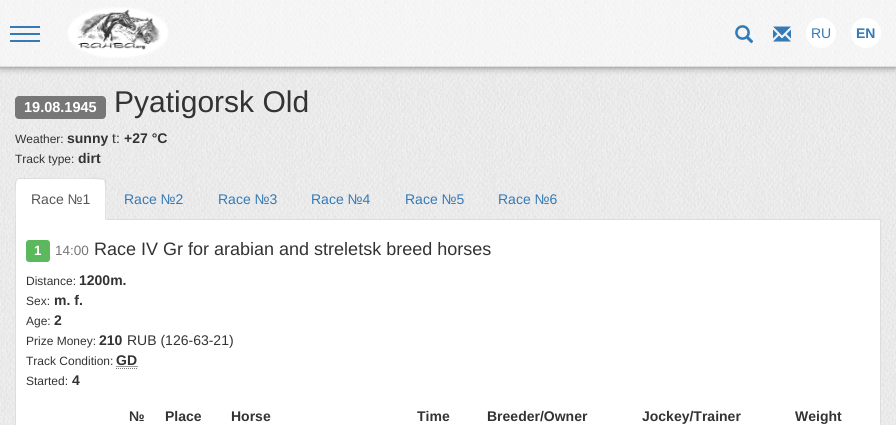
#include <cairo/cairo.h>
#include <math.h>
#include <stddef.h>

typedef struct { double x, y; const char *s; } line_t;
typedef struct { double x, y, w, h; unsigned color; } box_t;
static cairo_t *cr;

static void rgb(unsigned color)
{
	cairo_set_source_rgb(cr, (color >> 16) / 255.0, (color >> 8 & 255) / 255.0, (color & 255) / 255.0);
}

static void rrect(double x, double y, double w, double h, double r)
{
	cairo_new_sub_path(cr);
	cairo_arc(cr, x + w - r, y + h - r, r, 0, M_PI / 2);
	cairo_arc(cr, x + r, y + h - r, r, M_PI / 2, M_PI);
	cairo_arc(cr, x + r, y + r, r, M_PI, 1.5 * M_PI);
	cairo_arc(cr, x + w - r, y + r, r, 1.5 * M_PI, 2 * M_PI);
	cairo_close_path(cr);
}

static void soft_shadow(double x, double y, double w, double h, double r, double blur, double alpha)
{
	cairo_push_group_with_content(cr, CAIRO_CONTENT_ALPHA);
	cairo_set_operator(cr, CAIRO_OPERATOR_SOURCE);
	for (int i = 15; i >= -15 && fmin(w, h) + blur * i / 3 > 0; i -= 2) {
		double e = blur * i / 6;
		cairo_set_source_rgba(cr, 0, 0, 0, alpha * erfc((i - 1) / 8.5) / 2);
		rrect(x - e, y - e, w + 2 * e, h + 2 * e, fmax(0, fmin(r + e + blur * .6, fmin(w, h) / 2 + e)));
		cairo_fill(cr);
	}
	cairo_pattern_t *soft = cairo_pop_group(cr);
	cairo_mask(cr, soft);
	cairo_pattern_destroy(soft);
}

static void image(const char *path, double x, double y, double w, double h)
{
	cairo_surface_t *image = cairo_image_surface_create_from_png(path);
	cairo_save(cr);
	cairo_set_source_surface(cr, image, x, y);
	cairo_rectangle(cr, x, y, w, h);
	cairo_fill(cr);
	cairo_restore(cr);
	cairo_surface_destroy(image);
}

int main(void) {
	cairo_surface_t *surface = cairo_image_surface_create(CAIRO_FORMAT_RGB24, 896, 425);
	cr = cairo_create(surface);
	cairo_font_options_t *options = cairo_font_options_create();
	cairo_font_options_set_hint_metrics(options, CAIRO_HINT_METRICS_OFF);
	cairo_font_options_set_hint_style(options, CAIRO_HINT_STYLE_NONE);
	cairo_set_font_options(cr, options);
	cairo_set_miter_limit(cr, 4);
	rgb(0xffffff);
	cairo_paint(cr);
	image("img/1.png", 0, 67, 896, 358);
	rgb(0x000000);
	soft_shadow(0, 0, 896, 67, 0, 4, 0.5);
	image("img/2.png", 0, 0, 896, 66);
	{
		static const box_t items[] = {
			{0, 66, 896, 1, 0xdcdcdc},
			{10, 33, 30, 2, 0x337ab7},
			{10, 26, 30, 2, 0x337ab7},
			{10, 40, 30, 2, 0x337ab7},
		};
		for (size_t i = 0; i < sizeof items / sizeof *items; i++) {
			rgb(items[i].color);
			cairo_rectangle(cr, items[i].x, items[i].y, items[i].w, items[i].h);
			cairo_fill(cr);
		}
	}
	image("img/3.png", 67, 7, 101, 51);
	image("img/4.png", 735, 25, 19, 19);
	image("img/5.png", 773, 26, 18, 16);
	rgb(0xffffff);
	cairo_arc(cr, 821, 33, 15, 0, 2 * M_PI);
	cairo_fill(cr);
	cairo_arc(cr, 866, 33, 15, 0, 2 * M_PI);
	cairo_fill(cr);
	rgb(0x777777);
	rrect(15, 96, 91, 23, 4);
	cairo_fill(cr);
	rgb(0xdddddd);
	cairo_rectangle(cr, 106, 219, 775, 1);
	cairo_fill(cr);
	rgb(0xffffff);
	cairo_new_path(cr);
	cairo_move_to(cr, 19, 178);
	cairo_line_to(cr, 102, 178);
	cairo_curve_to(cr, 104, 178, 106, 180, 106, 182);
	cairo_line_to(cr, 106, 220);
	cairo_line_to(cr, 15, 220);
	cairo_line_to(cr, 15, 182);
	cairo_curve_to(cr, 15, 180, 17, 178, 19, 178);
	cairo_close_path(cr);
	cairo_fill(cr);
	rgb(0xdddddd);
	cairo_new_path(cr);
	cairo_move_to(cr, 19, 178);
	cairo_line_to(cr, 16, 179);
	cairo_line_to(cr, 17, 180);
	cairo_line_to(cr, 19, 179);
	cairo_line_to(cr, 33, 179);
	cairo_curve_to(cr, 40, 179, 102, 178, 104, 180);
	cairo_line_to(cr, 105, 179);
	cairo_line_to(cr, 102, 178);
	cairo_close_path(cr);
	cairo_fill(cr);
	cairo_new_path(cr);
	cairo_move_to(cr, 106, 220);
	cairo_line_to(cr, 106, 182);
	cairo_curve_to(cr, 106, 181, 106, 180, 105, 179);
	cairo_line_to(cr, 104, 180);
	cairo_curve_to(cr, 106, 182, 105, 214, 105, 219);
	cairo_close_path(cr);
	cairo_fill(cr);
	cairo_new_path(cr);
	cairo_move_to(cr, 15, 220);
	cairo_line_to(cr, 16, 219);
	cairo_curve_to(cr, 16, 214, 15, 182, 17, 180);
	cairo_line_to(cr, 16, 179);
	cairo_line_to(cr, 15, 182);
	cairo_close_path(cr);
	cairo_fill(cr);
	{
		static const box_t items[] = {
			{16, 220, 864, 205, 0xffffff},
			{880, 220, 1, 205, 0xdddddd},
			{15, 220, 1, 205, 0xdddddd},
		};
		for (size_t i = 0; i < sizeof items / sizeof *items; i++) {
			rgb(items[i].color);
			cairo_rectangle(cr, items[i].x, items[i].y, items[i].w, items[i].h);
			cairo_fill(cr);
		}
	}
	rgb(0x5cb85c);
	rrect(26, 240, 24, 22, 3);
	cairo_fill(cr);
	cairo_new_path(cr);
	cairo_move_to(cr, 116, 368.5);
	cairo_line_to(cr, 137, 368.5);
	rgb(0x777777);
	cairo_set_line_width(cr, 1);
	cairo_set_dash(cr, (double[]){1, 1}, 2, 0);
	cairo_stroke(cr);
	cairo_new_path(cr);
	cairo_move_to(cr, 116.5, 366.5);
	cairo_line_to(cr, 137.5, 366.5);
	rgb(0x333333);
	cairo_stroke(cr);
	cairo_select_font_face(cr, "Liberation Sans", CAIRO_FONT_SLANT_NORMAL, CAIRO_FONT_WEIGHT_NORMAL);
	cairo_set_font_size(cr, 14);
	rgb(0x337ab7);
	cairo_move_to(cr, 811, 38);
	cairo_show_text(cr, "RU");
	cairo_select_font_face(cr, "Liberation Sans", CAIRO_FONT_SLANT_NORMAL, CAIRO_FONT_WEIGHT_BOLD);
	cairo_move_to(cr, 856, 38);
	cairo_show_text(cr, "EN");
	cairo_set_font_size(cr, 14.5);
	rgb(0xffffff);
	cairo_move_to(cr, 24, 112);
	cairo_show_text(cr, "19.08.1945");
	cairo_select_font_face(cr, "Liberation Sans", CAIRO_FONT_SLANT_NORMAL, CAIRO_FONT_WEIGHT_NORMAL);
	cairo_set_font_size(cr, 30);
	rgb(0x333333);
	cairo_move_to(cr, 114, 112);
	cairo_show_text(cr, "Pyatigorsk Old");
	cairo_set_font_size(cr, 12);
	cairo_move_to(cr, 15, 143);
	cairo_show_text(cr, "Weather:");
	cairo_select_font_face(cr, "Liberation Sans", CAIRO_FONT_SLANT_NORMAL, CAIRO_FONT_WEIGHT_BOLD);
	cairo_set_font_size(cr, 14);
	cairo_move_to(cr, 67, 143);
	cairo_show_text(cr, "sunny");
	cairo_select_font_face(cr, "Liberation Sans", CAIRO_FONT_SLANT_NORMAL, CAIRO_FONT_WEIGHT_NORMAL);
	cairo_move_to(cr, 112, 143);
	cairo_show_text(cr, "t:");
	cairo_select_font_face(cr, "Liberation Sans", CAIRO_FONT_SLANT_NORMAL, CAIRO_FONT_WEIGHT_BOLD);
	cairo_move_to(cr, 124, 143);
	cairo_show_text(cr, "+27 °C");
	cairo_select_font_face(cr, "Liberation Sans", CAIRO_FONT_SLANT_NORMAL, CAIRO_FONT_WEIGHT_NORMAL);
	cairo_set_font_size(cr, 12);
	cairo_move_to(cr, 15, 163);
	cairo_show_text(cr, "Track type:");
	cairo_select_font_face(cr, "Liberation Sans", CAIRO_FONT_SLANT_NORMAL, CAIRO_FONT_WEIGHT_BOLD);
	cairo_set_font_size(cr, 14);
	cairo_move_to(cr, 78, 163);
	cairo_show_text(cr, "dirt");
	cairo_select_font_face(cr, "Liberation Sans", CAIRO_FONT_SLANT_NORMAL, CAIRO_FONT_WEIGHT_NORMAL);
	rgb(0x555555);
	cairo_move_to(cr, 31, 204);
	cairo_show_text(cr, "Race №1");
	rgb(0x337ab7);
	{
		static const line_t items[] = {
			{124, 204, "Race №2"},
			{218, 204, "Race №3"},
			{311, 204, "Race №4"},
			{405, 204, "Race №5"},
			{498, 204, "Race №6"},
		};
		for (size_t i = 0; i < sizeof items / sizeof *items; i++) {
			cairo_move_to(cr, items[i].x, items[i].y);
			cairo_show_text(cr, items[i].s);
		}
	}
	cairo_select_font_face(cr, "Liberation Sans", CAIRO_FONT_SLANT_NORMAL, CAIRO_FONT_WEIGHT_BOLD);
	cairo_set_font_size(cr, 13.5);
	rgb(0xffffff);
	cairo_move_to(cr, 34, 255);
	cairo_show_text(cr, "1");
	cairo_select_font_face(cr, "Liberation Sans", CAIRO_FONT_SLANT_NORMAL, CAIRO_FONT_WEIGHT_NORMAL);
	rgb(0x777777);
	cairo_move_to(cr, 55, 255);
	cairo_show_text(cr, "14:00");
	cairo_set_font_size(cr, 18);
	rgb(0x333333);
	cairo_move_to(cr, 94, 255);
	cairo_show_text(cr, "Race IV Gr for arabian and streletsk breed horses");
	cairo_set_font_size(cr, 12);
	cairo_move_to(cr, 26, 285);
	cairo_show_text(cr, "Distance:");
	cairo_select_font_face(cr, "Liberation Sans", CAIRO_FONT_SLANT_NORMAL, CAIRO_FONT_WEIGHT_BOLD);
	cairo_set_font_size(cr, 14);
	cairo_move_to(cr, 79, 285);
	cairo_show_text(cr, "1200m.");
	cairo_select_font_face(cr, "Liberation Sans", CAIRO_FONT_SLANT_NORMAL, CAIRO_FONT_WEIGHT_NORMAL);
	cairo_set_font_size(cr, 12);
	cairo_move_to(cr, 26, 305);
	cairo_show_text(cr, "Sex:");
	cairo_select_font_face(cr, "Liberation Sans", CAIRO_FONT_SLANT_NORMAL, CAIRO_FONT_WEIGHT_BOLD);
	cairo_set_font_size(cr, 14);
	cairo_move_to(cr, 54, 305);
	cairo_show_text(cr, "m. f.");
	cairo_select_font_face(cr, "Liberation Sans", CAIRO_FONT_SLANT_NORMAL, CAIRO_FONT_WEIGHT_NORMAL);
	cairo_set_font_size(cr, 12);
	cairo_move_to(cr, 26, 325);
	cairo_show_text(cr, "Age:");
	cairo_select_font_face(cr, "Liberation Sans", CAIRO_FONT_SLANT_NORMAL, CAIRO_FONT_WEIGHT_BOLD);
	cairo_set_font_size(cr, 14);
	cairo_move_to(cr, 54, 325);
	cairo_show_text(cr, "2");
	cairo_select_font_face(cr, "Liberation Sans", CAIRO_FONT_SLANT_NORMAL, CAIRO_FONT_WEIGHT_NORMAL);
	cairo_set_font_size(cr, 12);
	cairo_move_to(cr, 26, 345);
	cairo_show_text(cr, "Prize Money:");
	cairo_select_font_face(cr, "Liberation Sans", CAIRO_FONT_SLANT_NORMAL, CAIRO_FONT_WEIGHT_BOLD);
	cairo_set_font_size(cr, 14);
	cairo_move_to(cr, 99, 345);
	cairo_show_text(cr, "210");
	cairo_select_font_face(cr, "Liberation Sans", CAIRO_FONT_SLANT_NORMAL, CAIRO_FONT_WEIGHT_NORMAL);
	cairo_move_to(cr, 127, 345);
	cairo_show_text(cr, "RUB (126-63-21)");
	cairo_set_font_size(cr, 12);
	cairo_move_to(cr, 26, 365);
	cairo_show_text(cr, "Track Condition:");
	cairo_select_font_face(cr, "Liberation Sans", CAIRO_FONT_SLANT_NORMAL, CAIRO_FONT_WEIGHT_BOLD);
	cairo_set_font_size(cr, 14);
	cairo_move_to(cr, 116, 365);
	cairo_show_text(cr, "GD");
	cairo_select_font_face(cr, "Liberation Sans", CAIRO_FONT_SLANT_NORMAL, CAIRO_FONT_WEIGHT_NORMAL);
	cairo_set_font_size(cr, 12);
	cairo_move_to(cr, 26, 385);
	cairo_show_text(cr, "Started:");
	cairo_select_font_face(cr, "Liberation Sans", CAIRO_FONT_SLANT_NORMAL, CAIRO_FONT_WEIGHT_BOLD);
	cairo_set_font_size(cr, 14);
	{
		static const line_t items[] = {
			{72, 385, "4"},
			{129, 421, "№"},
			{165, 421, "Place"},
			{231, 421, "Horse"},
			{417, 421, "Time"},
			{487, 421, "Breeder/Owner"},
			{642, 421, "Jockey/Trainer"},
			{795, 421, "Weight"},
		};
		for (size_t i = 0; i < sizeof items / sizeof *items; i++) {
			cairo_move_to(cr, items[i].x, items[i].y);
			cairo_show_text(cr, items[i].s);
		}
	}
	cairo_surface_write_to_png(surface, "page.png");
	cairo_font_options_destroy(options);
	cairo_destroy(cr);
	cairo_surface_destroy(surface);
	return 0;
}
